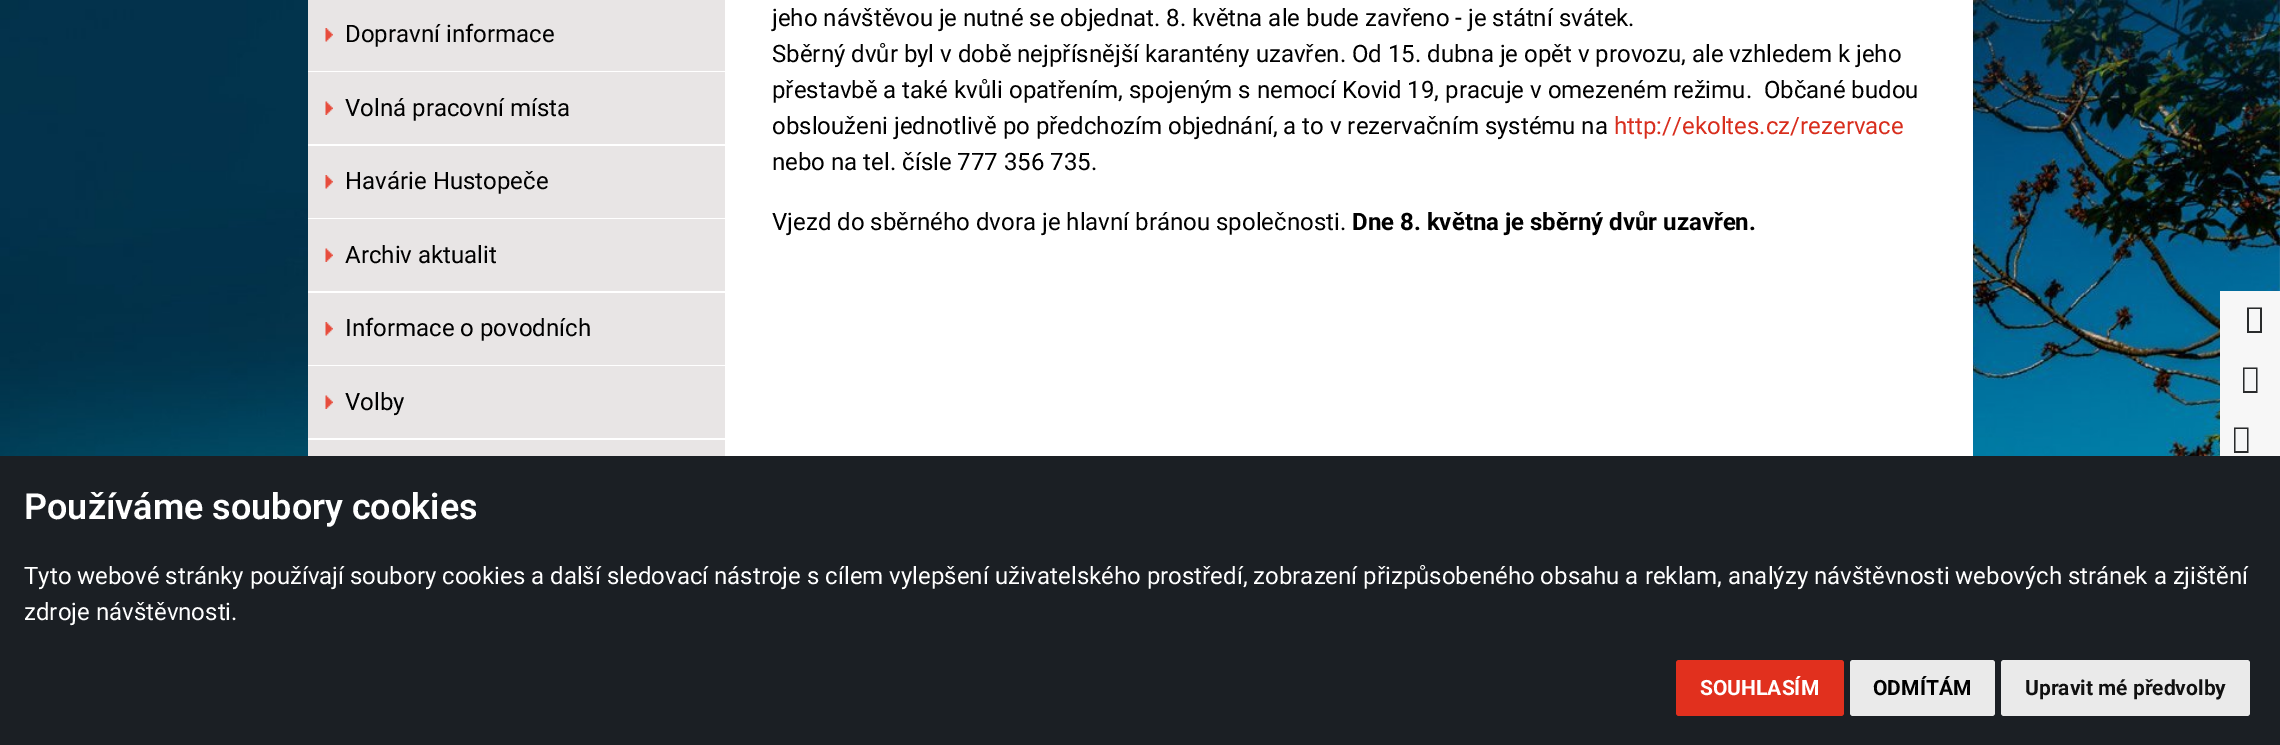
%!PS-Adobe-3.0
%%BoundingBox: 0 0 2280 745
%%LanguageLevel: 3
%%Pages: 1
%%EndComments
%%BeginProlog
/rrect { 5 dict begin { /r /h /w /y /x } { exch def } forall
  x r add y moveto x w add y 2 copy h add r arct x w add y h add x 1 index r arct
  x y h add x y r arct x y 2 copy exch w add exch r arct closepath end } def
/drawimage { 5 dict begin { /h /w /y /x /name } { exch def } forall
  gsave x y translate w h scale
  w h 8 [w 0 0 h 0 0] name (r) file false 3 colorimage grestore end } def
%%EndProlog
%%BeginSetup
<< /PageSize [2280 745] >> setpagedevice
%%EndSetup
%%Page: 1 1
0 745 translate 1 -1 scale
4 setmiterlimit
1 setgray
0 0 2280 745 rectfill
(images/1.raw) 0 0 2280 456 drawimage
725 0 1248 456 rectfill
0.91 0.898 0.898 setrgbcolor
308 0 417 456 rectfill
1 setgray
308 71 417 1 rectfill
(images/2.raw) 325 28 8 14 drawimage
308 144 417 2 rectfill
(images/3.raw) 325 101 8 14 drawimage
308 218 417 1 rectfill
(images/2.raw) 325 175 8 14 drawimage
308 291 417 2 rectfill
(images/3.raw) 325 248 8 14 drawimage
308 365 417 1 rectfill
(images/2.raw) 325 322 8 14 drawimage
308 438 417 2 rectfill
(images/3.raw) 325 395 8 14 drawimage
0.969 setgray
2220 291 60 165 rectfill
0.161 0.169 0.173 setrgbcolor
newpath 2247 333 moveto 2247 307.5 lineto 2262 307.5 lineto 2262 333 lineto closepath 2249 331 moveto 2260 331 lineto 2260 309 lineto 2249 309 lineto closepath fill
newpath 2243 393 moveto 2243 367.5 lineto 2257.5 367.5 lineto 2257.5 393 lineto closepath 2244.5 391 moveto 2256 391 lineto 2256 369 lineto 2244.5 369 lineto closepath fill
newpath 2234 453 moveto 2234 427.5 lineto 2248.5 427.5 lineto 2248.5 453 lineto closepath 2235.5 451 moveto 2247 451 lineto 2247 429 lineto 2235.5 429 lineto closepath fill
0.106 0.122 0.141 setrgbcolor
0 456 2280 289 rectfill
0.882 0.188 0.118 setrgbcolor
1676 660 168 56 3 rrect fill
0.918 setgray
1850 660 145 56 3 rrect fill
2001 660 249 56 3 rrect fill
/Roboto-Regular [24 0 0 -24 0 0] selectfont
0 setgray
345 42 moveto (Dopravní informace) show
345 116 moveto (Volná pracovní místa) show
345 189 moveto (Havárie Hustopeče) show
345 263 moveto (Archiv aktualit) show
345 336 moveto (Informace o povodních) show
345 410 moveto (Volby) show
772 26 moveto (jeho návštěvou je nutné se objednat. 8. května ale bude zavřeno - je státní svátek.) show
772 62 moveto (Sběrný dvůr byl v době nejpřísnější karantény uzavřen. Od 15. dubna je opět v provozu, ale vzhledem k jeho) show
772 98 moveto (přestavbě a také kvůli opatřením, spojeným s nemocí Kovid 19, pracuje v omezeném režimu.  Občané budou) show
772 134 moveto (obslouženi jednotlivě po předchozím objednání, a to v rezervačním systému na) show
0.847 0.18 0.114 setrgbcolor
1614 134 moveto (http://ekoltes.cz/rezervace) show
0 setgray
772 170 moveto (nebo na tel. čísle 777 356 735.) show
772 230 moveto (Vjezd do sběrného dvora je hlavní bránou společnosti.) show
/Roboto-Bold [24 0 0 -24 0 0] selectfont
1352 230 moveto (Dne 8. května je sběrný dvůr uzavřen.) show
/Roboto-SemiBold [36 0 0 -36 0 0] selectfont
1 setgray
24 519 moveto (Používáme soubory cookies) show
/Roboto-Regular [24 0 0 -24 0 0] selectfont
24 584 moveto (Tyto webové stránky používají soubory cookies a další sledovací nástroje s cílem vylepšení uživatelského prostředí, zobrazení přizpůsobeného obsahu a reklam, analýzy návštěvnosti webových stránek a zjištění) show
24 620 moveto (zdroje návštěvnosti.) show
/Roboto-Bold [21 0 0 -21 0 0] selectfont
1700 695 moveto (SOUHLASÍM) show
0 setgray
1873 695 moveto (ODMÍTÁM) show
0.067 setgray
2025 695 moveto (Upravit mé předvolby) show
showpage
%%EOF
